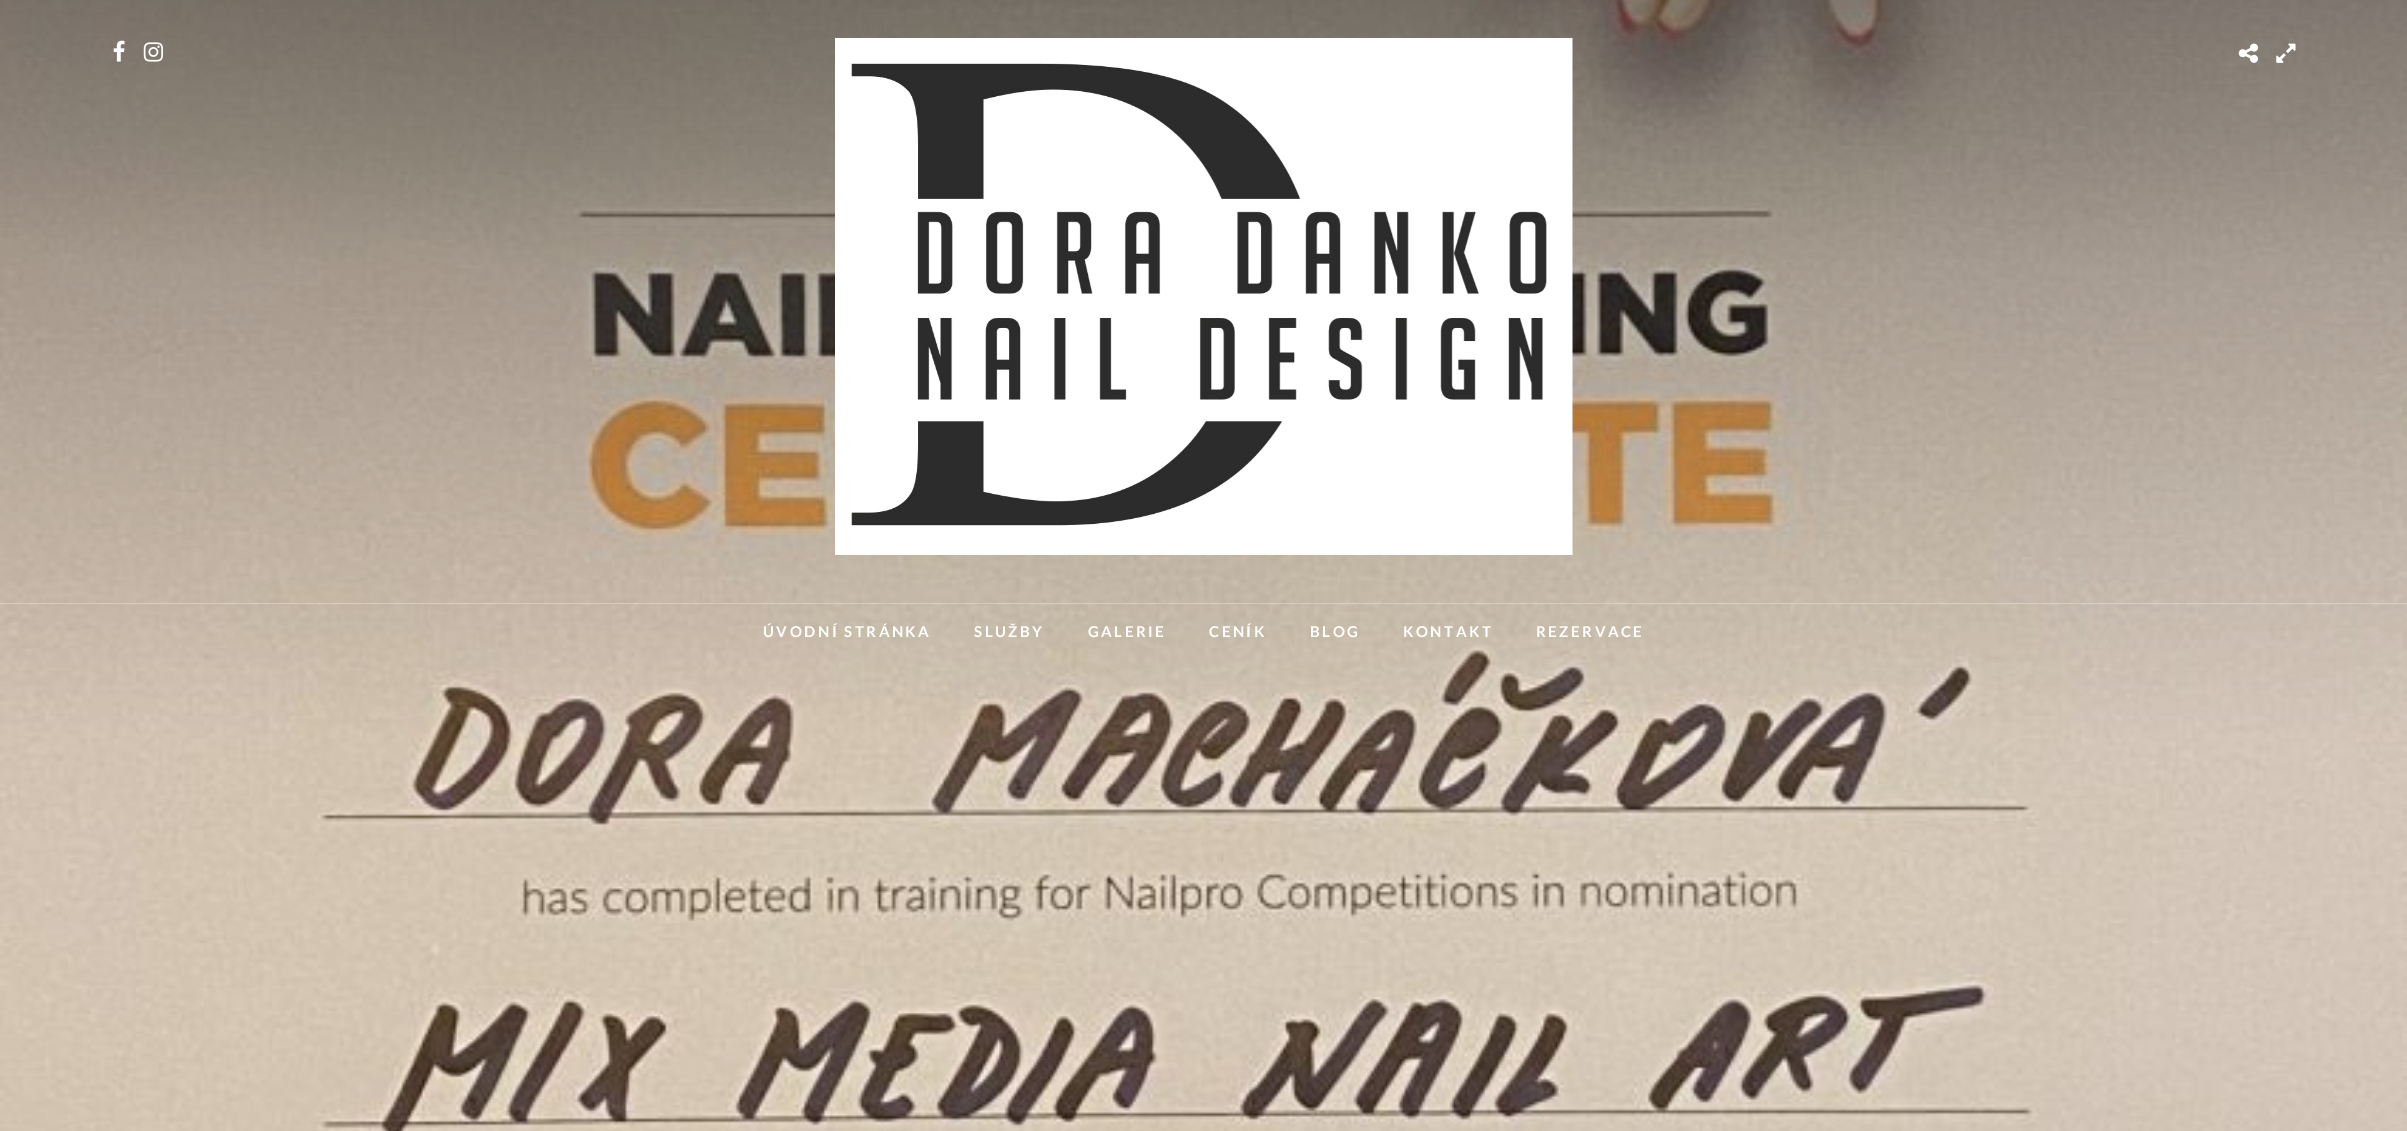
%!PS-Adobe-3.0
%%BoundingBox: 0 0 2407 1131
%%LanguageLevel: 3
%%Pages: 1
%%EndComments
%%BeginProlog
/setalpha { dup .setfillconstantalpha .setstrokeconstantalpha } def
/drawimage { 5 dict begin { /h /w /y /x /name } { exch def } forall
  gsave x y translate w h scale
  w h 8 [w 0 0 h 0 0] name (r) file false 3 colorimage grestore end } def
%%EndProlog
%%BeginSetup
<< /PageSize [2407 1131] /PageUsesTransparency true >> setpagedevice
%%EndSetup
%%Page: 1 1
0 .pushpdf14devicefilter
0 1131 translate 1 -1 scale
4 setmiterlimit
1 setgray
0 0 2407 1131 rectfill
(images/1.raw) 0 0 2407 1131 drawimage
0.3 setalpha
0 603 2407 1 rectfill
1 setalpha
(images/2.raw) 113 40 12 22 drawimage
(images/3.raw) 143 42 21 20 drawimage
(images/4.raw) 835 38 738 517 drawimage
(images/5.raw) 2238 43 20 20 drawimage
(images/6.raw) 2276 43 20 20 drawimage
/Lato-Bold [15 0 0 -15 0 0] selectfont
763 637 moveto 2.5 0 (ÚVODNÍ STRÁNKA) ashow
974 637 moveto 2.5 0 (SLUŽBY) ashow
1088 637 moveto 2.5 0 (GALERIE) ashow
1209 637 moveto 2.5 0 (CENÍK) ashow
1310 637 moveto 2.5 0 (BLOG) ashow
1403 637 moveto 2.5 0 (KONTAKT) ashow
1536 637 moveto 2.5 0 (REZERVACE) ashow
.poppdf14devicefilter showpage
%%EOF
